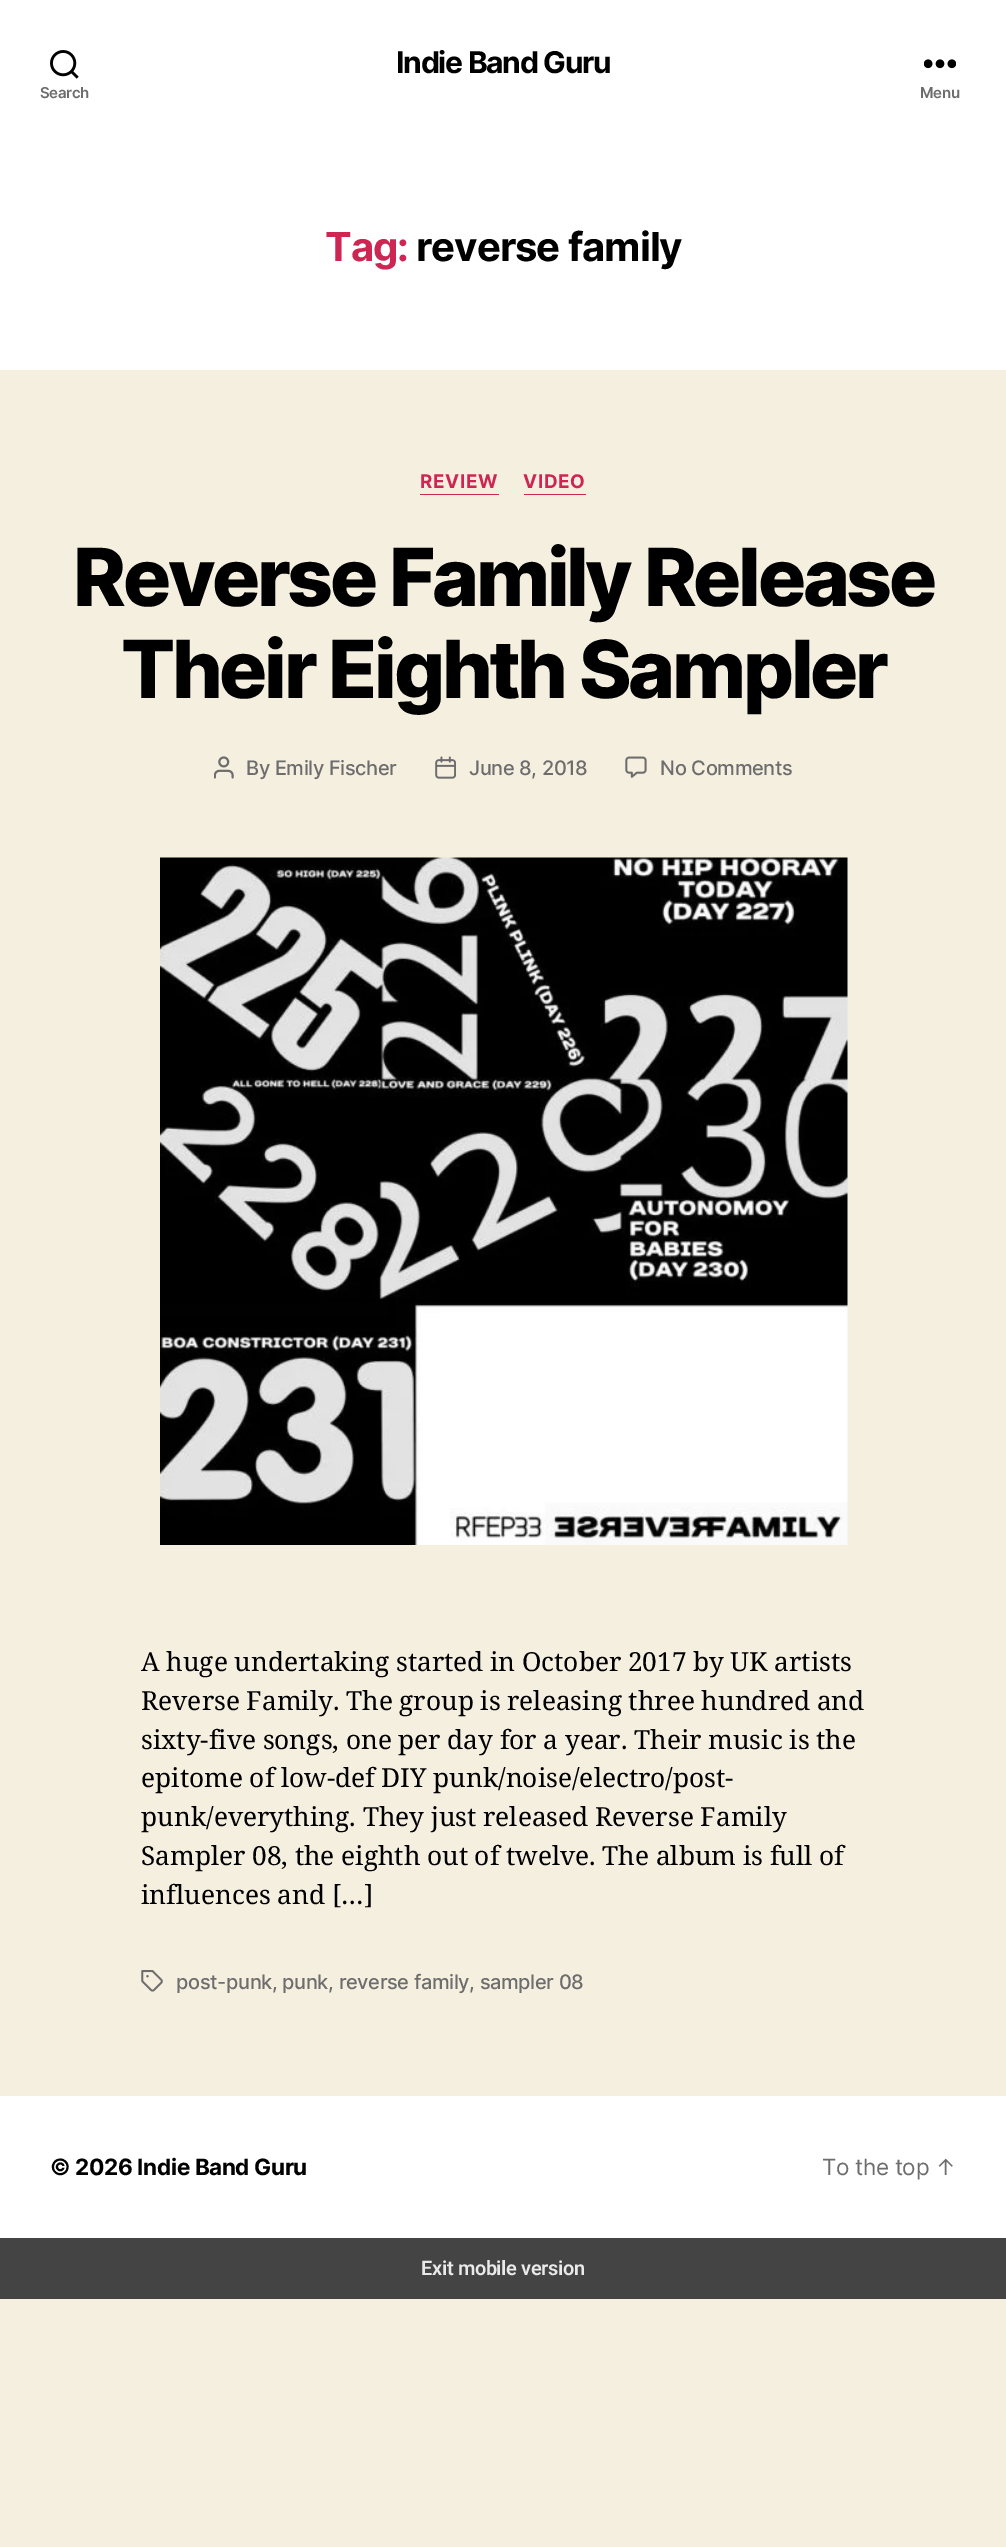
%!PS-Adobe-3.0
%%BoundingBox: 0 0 1006 2547
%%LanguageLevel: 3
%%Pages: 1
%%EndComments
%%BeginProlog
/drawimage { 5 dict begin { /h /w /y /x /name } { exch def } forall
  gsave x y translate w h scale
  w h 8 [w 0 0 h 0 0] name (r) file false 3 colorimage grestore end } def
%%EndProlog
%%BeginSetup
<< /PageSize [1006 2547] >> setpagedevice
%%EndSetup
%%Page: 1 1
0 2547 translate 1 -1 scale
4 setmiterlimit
0.961 0.937 0.878 setrgbcolor
0 0 1006 2547 rectfill
1 setgray
0 0 1006 370 rectfill
(images/1.raw) 50 50 29 29 drawimage
(images/2.raw) 924 59 32 10 drawimage
0.804 0.149 0.325 setrgbcolor
420 494 79 1 rectfill
524 494 62 1 rectfill
(images/3.raw) 214 756 20 23 drawimage
(images/4.raw) 435 756 21 23 drawimage
(images/5.raw) 625 756 22 22 drawimage
(images/6.raw) 160 857 688 688 drawimage
(images/7.raw) 141 1970 22 22 drawimage
1 setgray
0 2096 1006 142 rectfill
0.267 setgray
0 2238 1006 61 rectfill
/Inter-Bold [30 0 0 -30 0 0] selectfont
0 setgray
396 73 moveto -1.25 0 (Indie Band Guru) ashow
/Inter-SemiBold [15 0 0 -15 0 0] selectfont
0.427 setgray
40 98 moveto -0.35 0 (Search) ashow
920 98 moveto -0.35 0 (Menu) ashow
/Inter-Bold [40 0 0 -40 0 0] selectfont
0.804 0.149 0.325 setrgbcolor
325 261 moveto -1 0 (Tag:) ashow
0 setgray
416 261 moveto -1 0 (reverse family) ashow
/Inter-Bold [18.75 0 0 -18.75 0 0] selectfont
0.804 0.149 0.325 setrgbcolor
420 488 moveto 0.75 0 (REVIEW) ashow
523 488 moveto 0.75 0 (VIDEO) ashow
/Inter-ExtraBold [80 0 0 -80 0 0] selectfont
0 setgray
73 606 moveto -3.3 0 (Reverse Family Release) ashow
121 698 moveto -3.3 0 (Their Eighth Sampler) ashow
/Inter-Medium [20 0 0 -20 0 0] selectfont
0.427 setgray
246 775 moveto -0.35 0 (By Emily Fischer) ashow
469 775 moveto -0.35 0 (June 8, 2018) ashow
660 775 moveto -0.35 0 (No Comments) ashow
/NotoSerif-Regular [26.25 0 0 -26.25 0 0] selectfont
0 setgray
141 1671 moveto -0.25 0 32 (A huge undertaking started in October 2017 by UK artists) widthshow
141 1710 moveto -0.25 0 32 (Reverse Family. The group is releasing three hundred and) widthshow
141 1749 moveto -0.25 0 32 (sixty-five songs, one per day for a year. Their music is the) widthshow
141 1787 moveto -0.25 0 32 (epitome of low-def DIY punk/noise/electro/post-) widthshow
141 1826 moveto -0.25 0 32 (punk/everything. They just released Reverse Family) widthshow
141 1865 moveto -0.25 0 32 (Sampler 08, the eighth out of twelve. The album is full of) widthshow
141 1904 moveto -0.25 0 32 (influences and […]) widthshow
/Inter-Medium [20 0 0 -20 0 0] selectfont
0.427 setgray
176 1989 moveto -0.35 0 (post-punk, punk, reverse family, sampler 08) ashow
/Inter-Bold [22.5 0 0 -22.5 0 0] selectfont
0 setgray
50 2175 moveto -0.35 0 (© 2026 Indie Band Guru) ashow
/Inter-Regular [22.5 0 0 -22.5 0 0] selectfont
0.427 setgray
822 2175 moveto -0.35 0 (To the top ↑) ashow
/Roboto-SemiBold [20 0 0 -20 0 0] selectfont
0.918 setgray
421 2275 moveto -0.35 0 (Exit mobile version) ashow
showpage
%%EOF
